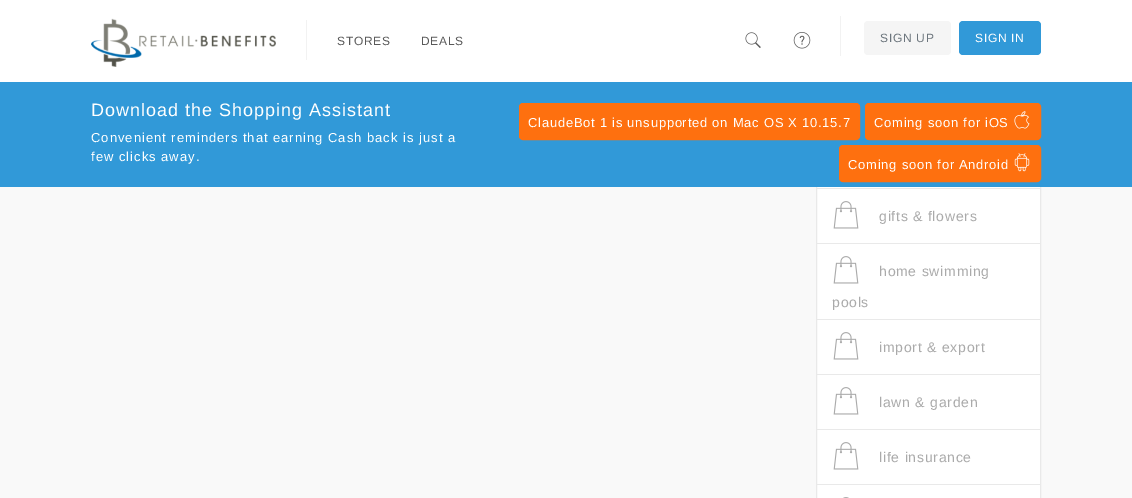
%!PS-Adobe-3.0
%%BoundingBox: 0 0 1132 498
%%LanguageLevel: 3
%%Pages: 1
%%EndComments
%%BeginProlog
/rrect { 5 dict begin { /r /h /w /y /x } { exch def } forall
  x r add y moveto x w add y 2 copy h add r arct x w add y h add x 1 index r arct
  x y h add x y r arct x y 2 copy exch w add exch r arct closepath end } def
/drawimage { 5 dict begin { /h /w /y /x /name } { exch def } forall
  gsave x y translate w h scale
  w h 8 [w 0 0 h 0 0] name (r) file false 3 colorimage grestore end } def
%%EndProlog
%%BeginSetup
<< /PageSize [1132 498] >> setpagedevice
%%EndSetup
%%Page: 1 1
0 498 translate 1 -1 scale
4 setmiterlimit
0.976 setgray
0 0 1132 498 rectfill
1 setgray
817 187 223 311 rectfill
0.914 setgray
816.5 -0.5 224 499 rectstroke
1 setgray
0 0 1132 82 rectfill
(images/1.raw) 91 18 185 49 drawimage
0.949 setgray
306 20 1 40 rectfill
(images/2.raw) 745 32 16 16 drawimage
(images/3.raw) 793 32 18 17 drawimage
840 16 1 40 rectfill
0.961 setgray
864 21 87 34 4 rrect fill
0.192 0.6 0.847 setrgbcolor
959 21 82 34 4 rrect fill
0 82 1132 105 rectfill
0.996 0.439 0.059 setrgbcolor
519.5 103.5 340 36 3.5 rrect gsave fill grestore
stroke
865.5 103.5 175 36 3.5 rrect gsave fill grestore
stroke
(images/4.raw) 1014 111 16 18 drawimage
839.5 145.5 201 36 3.5 rrect gsave fill grestore
stroke
(images/5.raw) 1014 153 16 19 drawimage
0.914 setgray
817 188 223 1 rectfill
817 243 223 1 rectfill
(images/6.raw) 833 201 26 28 drawimage
817 319 223 1 rectfill
(images/6.raw) 833 256 26 28 drawimage
817 374 223 1 rectfill
(images/6.raw) 833 332 26 28 drawimage
817 429 223 1 rectfill
(images/6.raw) 833 387 26 28 drawimage
817 484 223 1 rectfill
(images/6.raw) 833 442 26 28 drawimage
(images/7.raw) 843 497 6 1 drawimage
/LiberationSans-Regular [12 0 0 -12 0 0] selectfont
0.349 setgray
337 45 moveto 0.75 0 (STORES) ashow
421 45 moveto 0.75 0 (DEALS) ashow
0.424 0.459 0.49 setrgbcolor
880 42 moveto 0.75 0 (SIGN UP) ashow
1 setgray
975 42 moveto 0.75 0 (SIGN IN) ashow
/LiberationSans-Regular [18 0 0 -18 0 0] selectfont
91 116 moveto 1 0 (Download the Shopping Assistant) ashow
/LiberationSans-Regular [13 0 0 -13 0 0] selectfont
91 142 moveto 1 0 (Convenient reminders that earning Cash back is just a) ashow
91 161 moveto 1 0 (few clicks away.) ashow
528 127 moveto 0.75 0 (ClaudeBot 1 is unsupported on Mac OS X 10.15.7) ashow
874 127 moveto 0.75 0 (Coming soon for iOS) ashow
848 169 moveto 0.75 0 (Coming soon for Android) ashow
/LiberationSans-Regular [14 0 0 -14 0 0] selectfont
0.667 setgray
879 221 moveto 0.75 0 (gifts & flowers) ashow
879 276 moveto 0.75 0 (home swimming) ashow
832 307 moveto 0.75 0 (pools) ashow
879 352 moveto 0.75 0 (import & export) ashow
879 407 moveto 0.75 0 (lawn & garden) ashow
879 462 moveto 0.75 0 (life insurance) ashow
showpage
%%EOF
